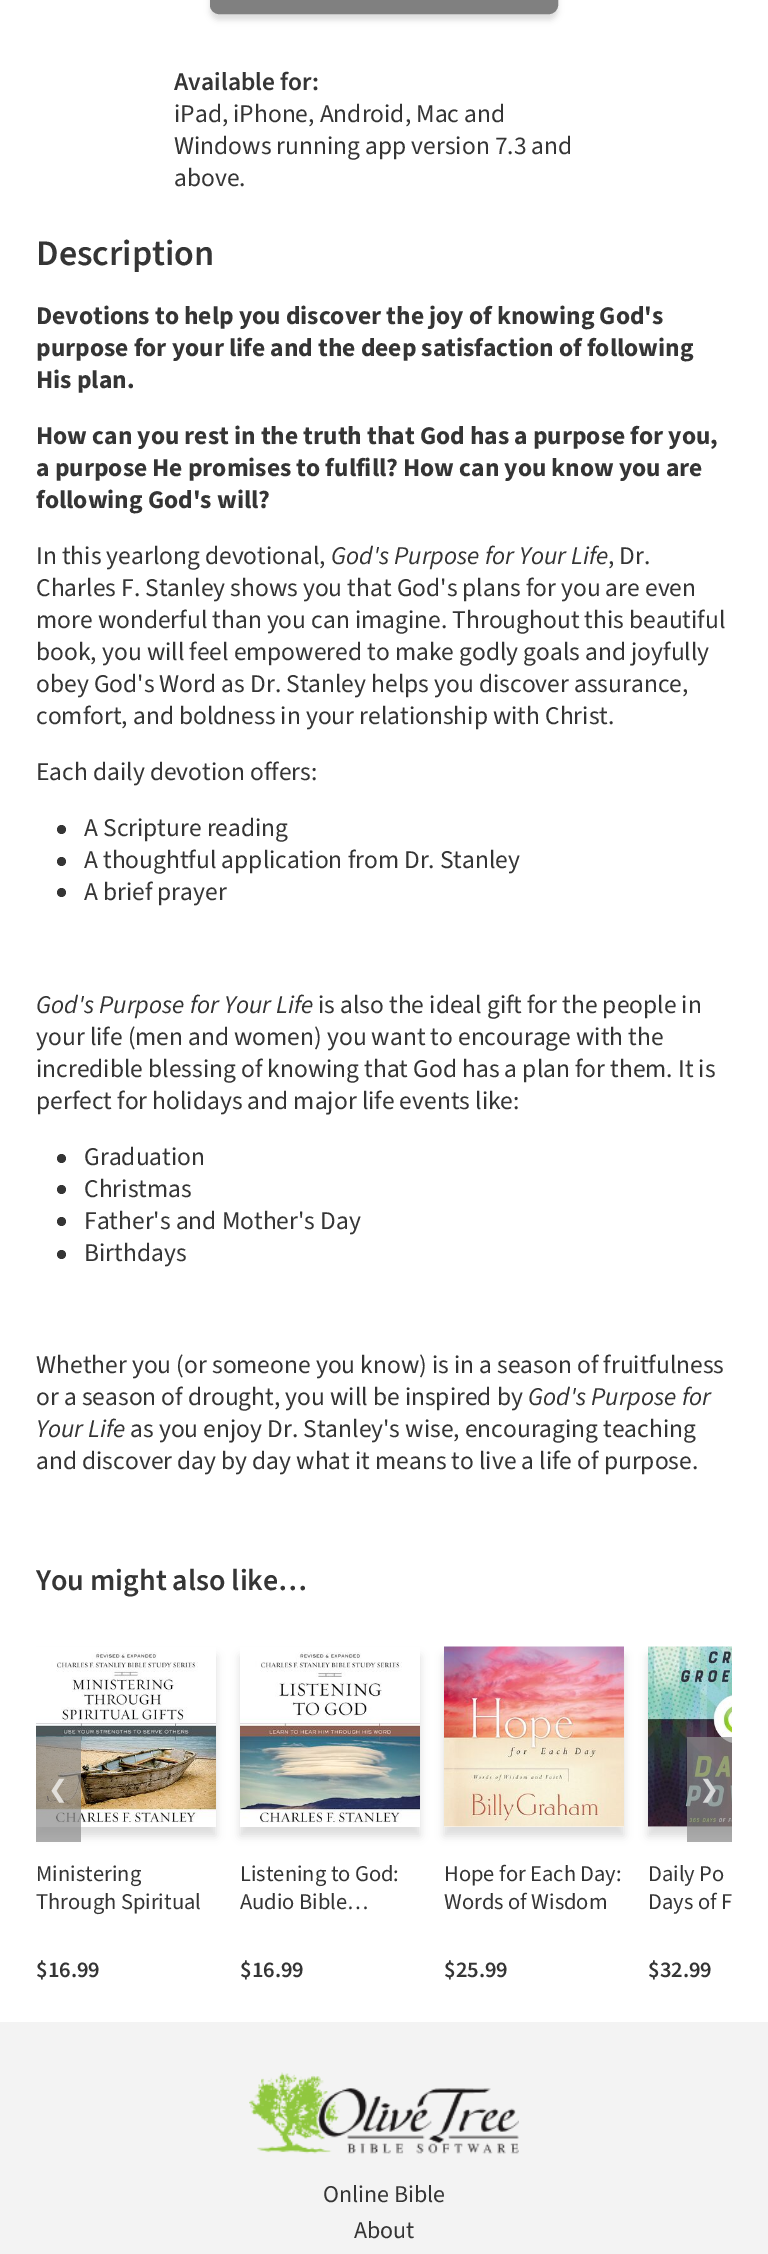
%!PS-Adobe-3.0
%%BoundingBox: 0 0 768 2254
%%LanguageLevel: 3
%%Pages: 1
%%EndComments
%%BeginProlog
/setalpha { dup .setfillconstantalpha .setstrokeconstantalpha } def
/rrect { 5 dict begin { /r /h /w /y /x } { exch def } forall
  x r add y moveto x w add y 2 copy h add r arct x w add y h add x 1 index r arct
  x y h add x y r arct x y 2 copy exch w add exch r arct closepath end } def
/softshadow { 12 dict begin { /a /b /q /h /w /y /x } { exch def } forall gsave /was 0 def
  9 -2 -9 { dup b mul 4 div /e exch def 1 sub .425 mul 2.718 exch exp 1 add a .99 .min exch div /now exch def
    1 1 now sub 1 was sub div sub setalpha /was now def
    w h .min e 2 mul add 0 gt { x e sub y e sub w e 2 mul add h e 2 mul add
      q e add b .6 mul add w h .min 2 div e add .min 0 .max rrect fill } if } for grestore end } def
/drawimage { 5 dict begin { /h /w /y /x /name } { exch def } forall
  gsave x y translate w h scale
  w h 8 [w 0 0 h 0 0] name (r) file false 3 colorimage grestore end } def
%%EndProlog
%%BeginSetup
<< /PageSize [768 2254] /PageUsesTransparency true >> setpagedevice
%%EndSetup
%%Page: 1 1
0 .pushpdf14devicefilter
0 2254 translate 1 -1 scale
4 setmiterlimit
1 setgray
0 0 768 2254 rectfill
0 setgray
210 -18 348 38 9 3 0.13 softshadow
0.502 setgray
211 -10 346 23 8 rrect gsave fill grestore
2 setlinewidth
stroke
0.208 setgray
newpath 61.5 829.5 4.5 0 360 arc closepath fill
newpath 61.5 861.5 4.5 0 360 arc closepath fill
newpath 61.5 892.5 4.5 0 360 arc closepath fill
newpath 61.5 1158.5 4.5 0 360 arc closepath fill
newpath 61.5 1189.5 4.5 0 360 arc closepath fill
newpath 61.5 1221.5 4.5 0 360 arc closepath fill
newpath 61.5 1254.5 4.5 0 360 arc closepath fill
gsave
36 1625 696 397 rectclip
newpath 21 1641 moveto 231 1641 lineto 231 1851 lineto 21 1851 lineto closepath 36 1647 moveto 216 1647 lineto 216 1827 lineto 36 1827 lineto closepath eoclip newpath
0 setgray
36 1656 180 180 0 4.5 0.13 softshadow
grestore
(images/1.raw) 36 1652 180 171 drawimage
0.7 setalpha
0.541 setgray
36 1737 45 105 rectfill
gsave
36 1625 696 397 rectclip
1 setalpha
0 setgray
648 1656 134 180 0 4.5 0.13 softshadow
grestore
1 setalpha
(images/4.raw) 648 1646 84 181 drawimage
0.7 setalpha
687 1737 45 105 rectfill
gsave
newpath 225 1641 moveto 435 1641 lineto 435 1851 lineto 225 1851 lineto closepath 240 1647 moveto 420 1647 lineto 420 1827 lineto 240 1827 lineto closepath eoclip newpath
1 setalpha
0 setgray
240 1656 180 180 0 4.5 0.13 softshadow
grestore
1 setalpha
(images/2.raw) 240 1652 180 171 drawimage
0 setgray
444 1656 180 180 0 4.5 0.13 softshadow
(images/3.raw) 444 1646 180 181 drawimage
0.953 setgray
0 2022 768 232 rectfill
(images/5.raw) 249 2072 270 82 drawimage
/SourceSans3-SemiBold [25.5 0 0 -25.5 0 0] selectfont
0.208 setgray
174 90 moveto (Available for:) show
/SourceSans3-Regular [25.5 0 0 -25.5 0 0] selectfont
174 122 moveto (iPad, iPhone, Android, Mac and) show
174 154 moveto (Windows running app version 7.3 and) show
174 186 moveto (above.) show
/SourceSans3-SemiBold [36 0 0 -36 0 0] selectfont
36 265 moveto (Description) show
/SourceSans3-Bold [25.5 0 0 -25.5 0 0] selectfont
36 324 moveto (Devotions to help you discover the joy of knowing God's) show
36 356 moveto (purpose for your life and the deep satisfaction of following) show
36 388 moveto (His plan.) show
36 444 moveto (How can you rest in the truth that God has a purpose for you,) show
36 476 moveto (a purpose He promises to fulfill? How can you know you are) show
36 508 moveto (following God's will?) show
/SourceSans3-Regular [25.5 0 0 -25.5 0 0] selectfont
36 564 moveto (In this yearlong devotional,) show
/SourceSans3-Italic [25.5 0 0 -25.5 0 0] selectfont
331 564 moveto (God's Purpose for Your Life) show
/SourceSans3-Regular [25.5 0 0 -25.5 0 0] selectfont
608 564 moveto (, Dr.) show
36 596 moveto (Charles F. Stanley shows you that God's plans for you are even) show
36 628 moveto (more wonderful than you can imagine. Throughout this beautiful) show
36 660 moveto (book, you will feel empowered to make godly goals and joyfully) show
36 692 moveto (obey God's Word as Dr. Stanley helps you discover assurance,) show
36 724 moveto (comfort, and boldness in your relationship with Christ.) show
36 780 moveto (Each daily devotion offers:) show
84 836 moveto (A Scripture reading) show
84 868 moveto (A thoughtful application from Dr. Stanley) show
84 900 moveto (A brief prayer) show
/SourceSans3-Italic [25.5 0 0 -25.5 0 0] selectfont
36 1013 moveto (God's Purpose for Your Life) show
/SourceSans3-Regular [25.5 0 0 -25.5 0 0] selectfont
318 1013 moveto (is also the ideal gift for the people in) show
36 1045 moveto (your life \(men and women\) you want to encourage with the) show
36 1077 moveto (incredible blessing of knowing that God has a plan for them. It is) show
36 1109 moveto (perfect for holidays and major life events like:) show
84 1165 moveto (Graduation) show
84 1197 moveto (Christmas) show
84 1229 moveto (Father's and Mother's Day) show
84 1261 moveto (Birthdays) show
36 1373 moveto (Whether you \(or someone you know\) is in a season of fruitfulness) show
36 1405 moveto (or a season of drought, you will be inspired by) show
/SourceSans3-Italic [25.5 0 0 -25.5 0 0] selectfont
528 1405 moveto (God's Purpose for) show
36 1437 moveto (Your Life) show
/SourceSans3-Regular [25.5 0 0 -25.5 0 0] selectfont
130 1437 moveto (as you enjoy Dr. Stanley's wise, encouraging teaching) show
36 1469 moveto (and discover day by day what it means to live a life of purpose.) show
/SourceSans3-SemiBold [30 0 0 -30 0 0] selectfont
36 1590 moveto (You might also like…) show
/DejaVuSans-Regular [24 0 0 -24 0 0] selectfont
0.886 0.875 0.855 setrgbcolor
48 1797 moveto (❮) show
0.847 0.851 0.855 setrgbcolor
699 1797 moveto (❯) show
/SourceSans3-Regular [22.5 0 0 -22.5 0 0] selectfont
0.208 setgray
36 1881 moveto (Ministering) show
36 1909 moveto (Through Spiritual) show
/SourceSans3-SemiBold [22.5 0 0 -22.5 0 0] selectfont
36 1977 moveto ($16.99) show
/SourceSans3-Regular [22.5 0 0 -22.5 0 0] selectfont
240 1881 moveto (Listening to God:) show
240 1909 moveto (Audio Bible…) show
/SourceSans3-SemiBold [22.5 0 0 -22.5 0 0] selectfont
240 1977 moveto ($16.99) show
/SourceSans3-Regular [22.5 0 0 -22.5 0 0] selectfont
444 1881 moveto (Hope for Each Day:) show
444 1909 moveto (Words of Wisdom) show
/SourceSans3-SemiBold [22.5 0 0 -22.5 0 0] selectfont
444 1977 moveto ($25.99) show
/SourceSans3-Regular [22.5 0 0 -22.5 0 0] selectfont
648 1881 moveto (Daily Po) show
648 1909 moveto (Days of F) show
/SourceSans3-SemiBold [22.5 0 0 -22.5 0 0] selectfont
648 1977 moveto ($32.99) show
/SourceSans3-Regular [24 0 0 -24 0 0] selectfont
323 2202 moveto (Online Bible) show
354 2238 moveto (About) show
.poppdf14devicefilter showpage
%%EOF
